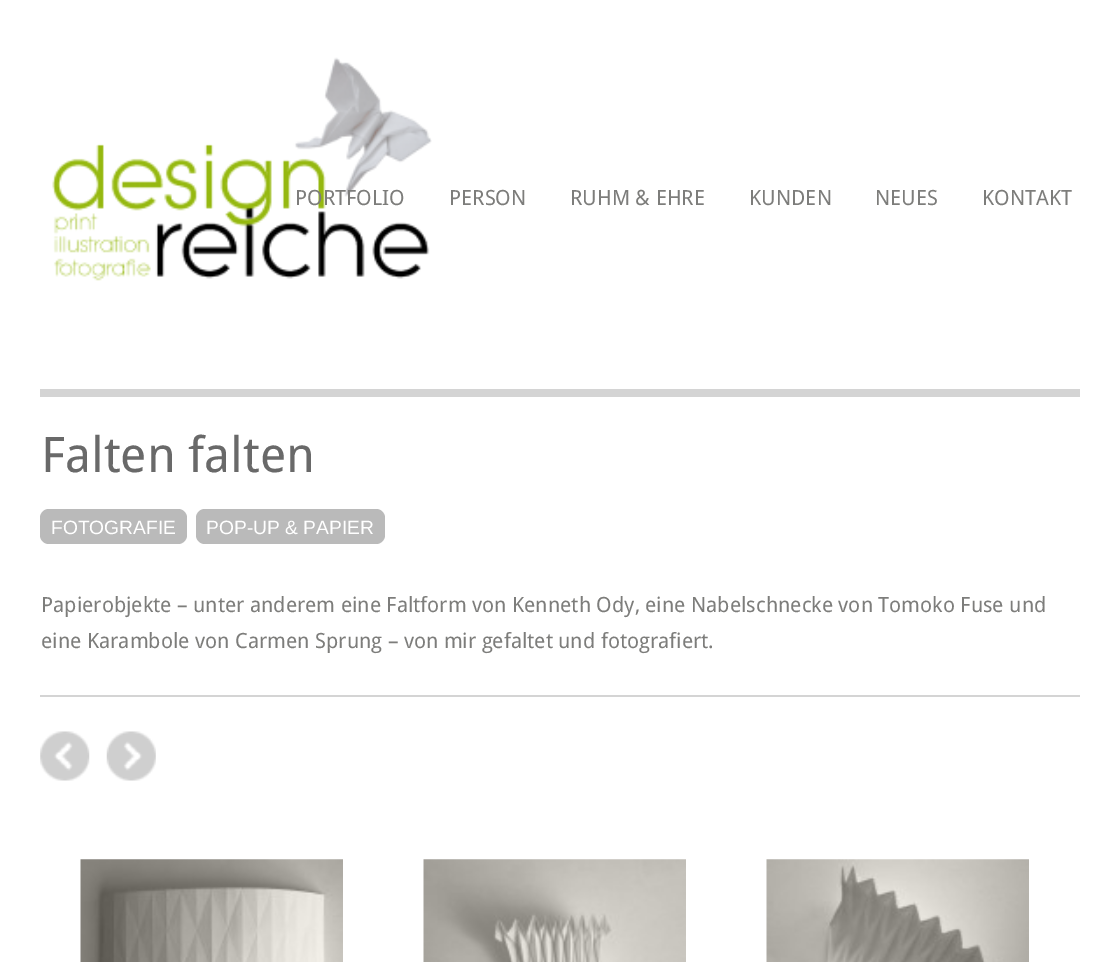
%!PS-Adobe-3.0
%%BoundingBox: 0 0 1115 962
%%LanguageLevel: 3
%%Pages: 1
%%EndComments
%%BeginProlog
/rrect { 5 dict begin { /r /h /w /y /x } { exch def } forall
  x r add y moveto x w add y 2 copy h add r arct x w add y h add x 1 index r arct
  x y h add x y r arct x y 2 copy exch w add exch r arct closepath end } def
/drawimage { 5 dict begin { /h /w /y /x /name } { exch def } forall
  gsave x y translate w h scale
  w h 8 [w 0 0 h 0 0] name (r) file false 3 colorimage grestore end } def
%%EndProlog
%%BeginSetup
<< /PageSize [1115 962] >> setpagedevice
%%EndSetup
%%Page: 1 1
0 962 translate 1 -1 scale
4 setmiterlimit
1 setgray
0 0 1115 962 rectfill
(images/1.raw) 52 57 380 224 drawimage
0.831 setgray
40 389 1040 8 rectfill
0.729 setgray
40 509 147 35 9 rrect fill
196 509 189 35 9 rrect fill
0.831 setgray
40 695 1040 2 rectfill
(images/2.raw) 40 731 50 50 drawimage
(images/3.raw) 106 731 50 50 drawimage
(images/4.raw) 80 859 263 103 drawimage
(images/5.raw) 423 859 263 103 drawimage
(images/6.raw) 766 859 263 103 drawimage
/DroidSans-Regular [21 0 0 -21 0 0] selectfont
0.49 0.49 0.482 setrgbcolor
295 205 moveto (PORTFOLIO) show
449 205 moveto (PERSON) show
570 205 moveto (RUHM & EHRE) show
749 205 moveto (KUNDEN) show
875 205 moveto (NEUES) show
982 205 moveto (KONTAKT) show
/DroidSans-Regular [49 0 0 -49 0 0] selectfont
0.412 setgray
41 472 moveto (Falten falten) show
/LiberationSans-Regular [19.25 0 0 -19.25 0 0] selectfont
1 setgray
51 534 moveto (FOTOGRAFIE) show
206 534 moveto (POP-UP & PAPIER) show
/DroidSans-Regular [21 0 0 -21 0 0] selectfont
0.49 0.49 0.482 setrgbcolor
41 612 moveto (Papierobjekte – unter anderem eine Faltform von Kenneth Ody, eine Nabelschnecke von Tomoko Fuse und) show
41 648 moveto (eine Karambole von Carmen Sprung – von mir gefaltet und fotografiert.) show
showpage
%%EOF
